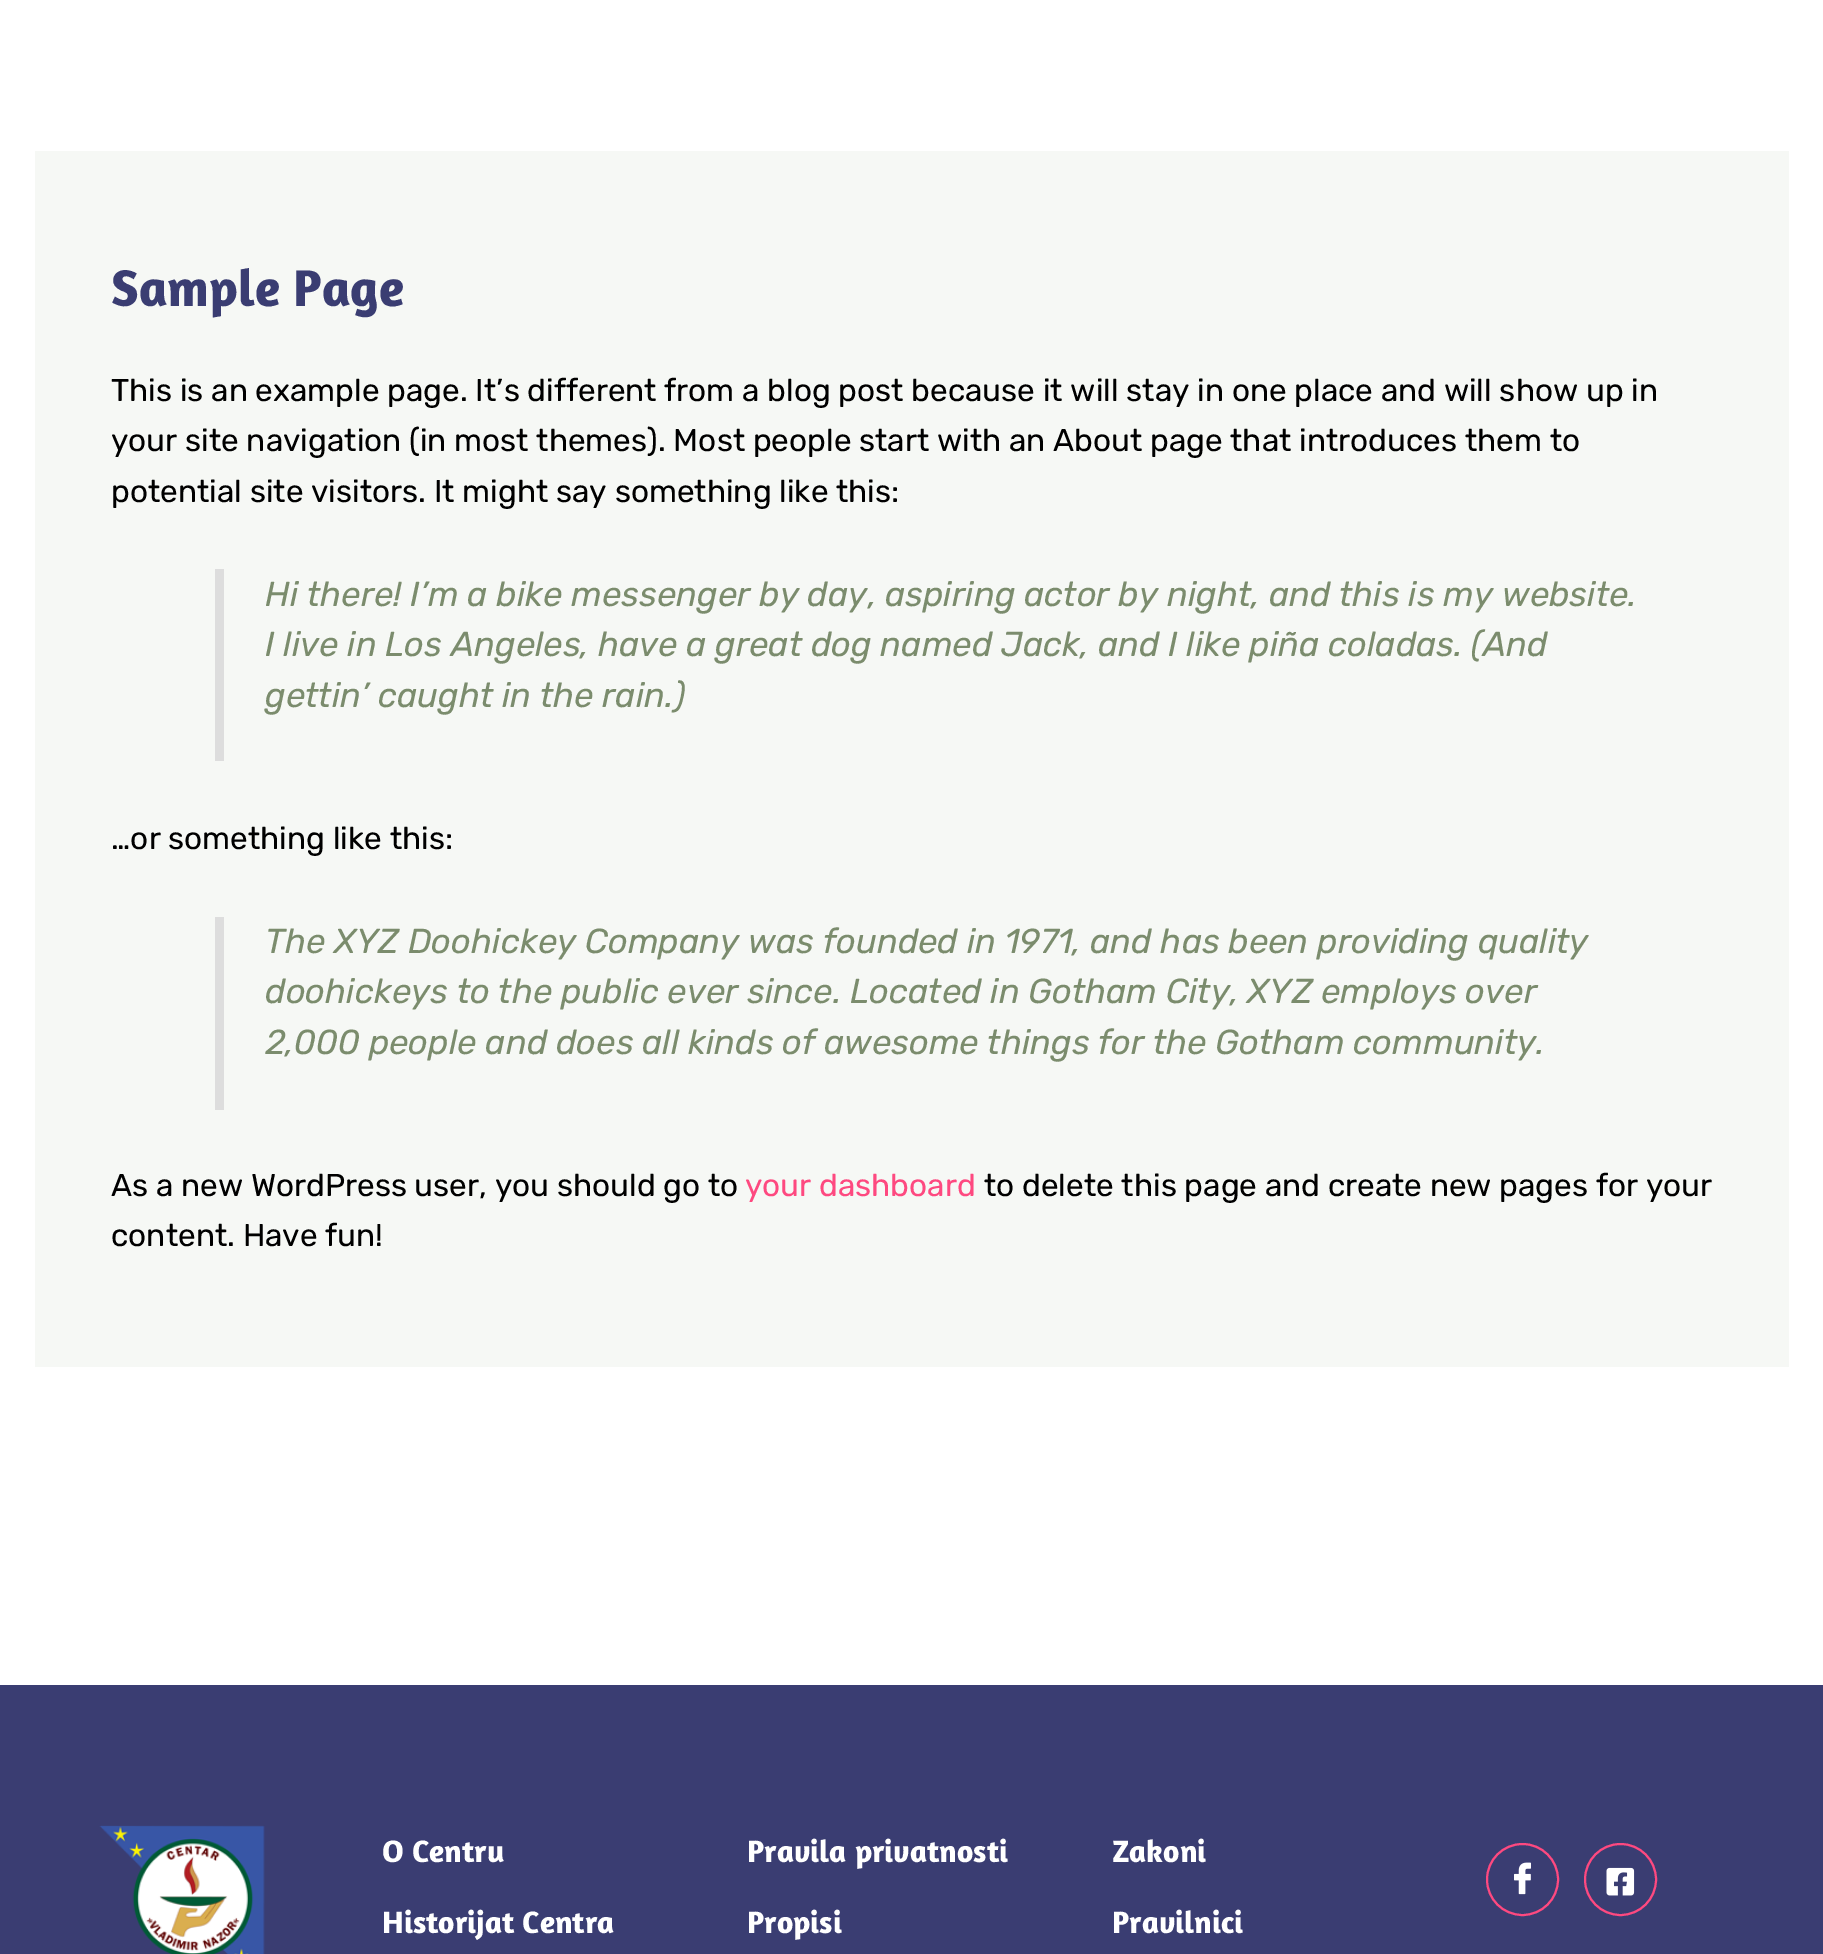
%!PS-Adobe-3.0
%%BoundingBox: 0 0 1823 1954
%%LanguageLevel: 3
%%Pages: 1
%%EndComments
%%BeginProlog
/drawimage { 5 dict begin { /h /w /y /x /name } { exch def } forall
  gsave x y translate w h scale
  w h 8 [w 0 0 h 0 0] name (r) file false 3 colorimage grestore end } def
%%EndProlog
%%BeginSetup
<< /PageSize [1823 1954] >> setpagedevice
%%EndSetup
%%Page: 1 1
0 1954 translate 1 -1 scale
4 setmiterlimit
1 setgray
0 0 1823 1954 rectfill
0.965 0.973 0.961 setrgbcolor
35 151 1754 1216 rectfill
0.867 setgray
215 569 9 192 rectfill
215 917 9 193 rectfill
0.227 0.239 0.447 setrgbcolor
0 1685 1823 269 rectfill
(images/1.raw) 99 1825 166 129 drawimage
0.996 0.286 0.502 setrgbcolor
2 setlinewidth
newpath 1522.5 1879.5 35.5 0 360 arc closepath stroke
(images/2.raw) 1514 1862 17 33 drawimage
newpath 1620.5 1879.5 35.5 0 360 arc closepath stroke
(images/3.raw) 1606 1867 29 29 drawimage
/Amaranth-Bold [52.5 0 0 -52.5 0 0] selectfont
0.227 0.239 0.447 setrgbcolor
111 306 moveto (Sample Page) show
/Rubik-Regular [31.5 0 0 -31.5 0 0] selectfont
0 setgray
111 401 moveto (This is an example page. It’s different from a blog post because it will stay in one place and will show up in) show
111 451 moveto (your site navigation \(in most themes\). Most people start with an About page that introduces them to) show
111 502 moveto (potential site visitors. It might say something like this:) show
/Rubik-Italic [34.65 0 0 -34.65 0 0] selectfont
0.482 0.549 0.427 setrgbcolor
265 606 moveto (Hi there! I’m a bike messenger by day, aspiring actor by night, and this is my website.) show
265 656 moveto (I live in Los Angeles, have a great dog named Jack, and I like piña coladas. \(And) show
265 707 moveto (gettin’ caught in the rain.\)) show
/Rubik-Regular [31.5 0 0 -31.5 0 0] selectfont
0 setgray
111 849 moveto (…or something like this:) show
/Rubik-Italic [34.65 0 0 -34.65 0 0] selectfont
0.482 0.549 0.427 setrgbcolor
265 953 moveto (The XYZ Doohickey Company was founded in 1971, and has been providing quality) show
265 1003 moveto (doohickeys to the public ever since. Located in Gotham City, XYZ employs over) show
265 1054 moveto (2,000 people and does all kinds of awesome things for the Gotham community.) show
/Rubik-Regular [31.5 0 0 -31.5 0 0] selectfont
0 setgray
111 1196 moveto (As a new WordPress user, you should go to) show
0.996 0.286 0.502 setrgbcolor
745 1196 moveto (your dashboard) show
0 setgray
984 1196 moveto (to delete this page and create new pages for your) show
111 1246 moveto (content. Have fun!) show
/Amaranth-Bold [31.5 0 0 -31.5 0 0] selectfont
1 setgray
382 1862 moveto (O Centru) show
382 1933 moveto (Historijat Centra) show
747 1862 moveto (Pravila privatnosti) show
747 1933 moveto (Propisi) show
1112 1862 moveto (Zakoni) show
1112 1933 moveto (Pravilnici) show
showpage
%%EOF
